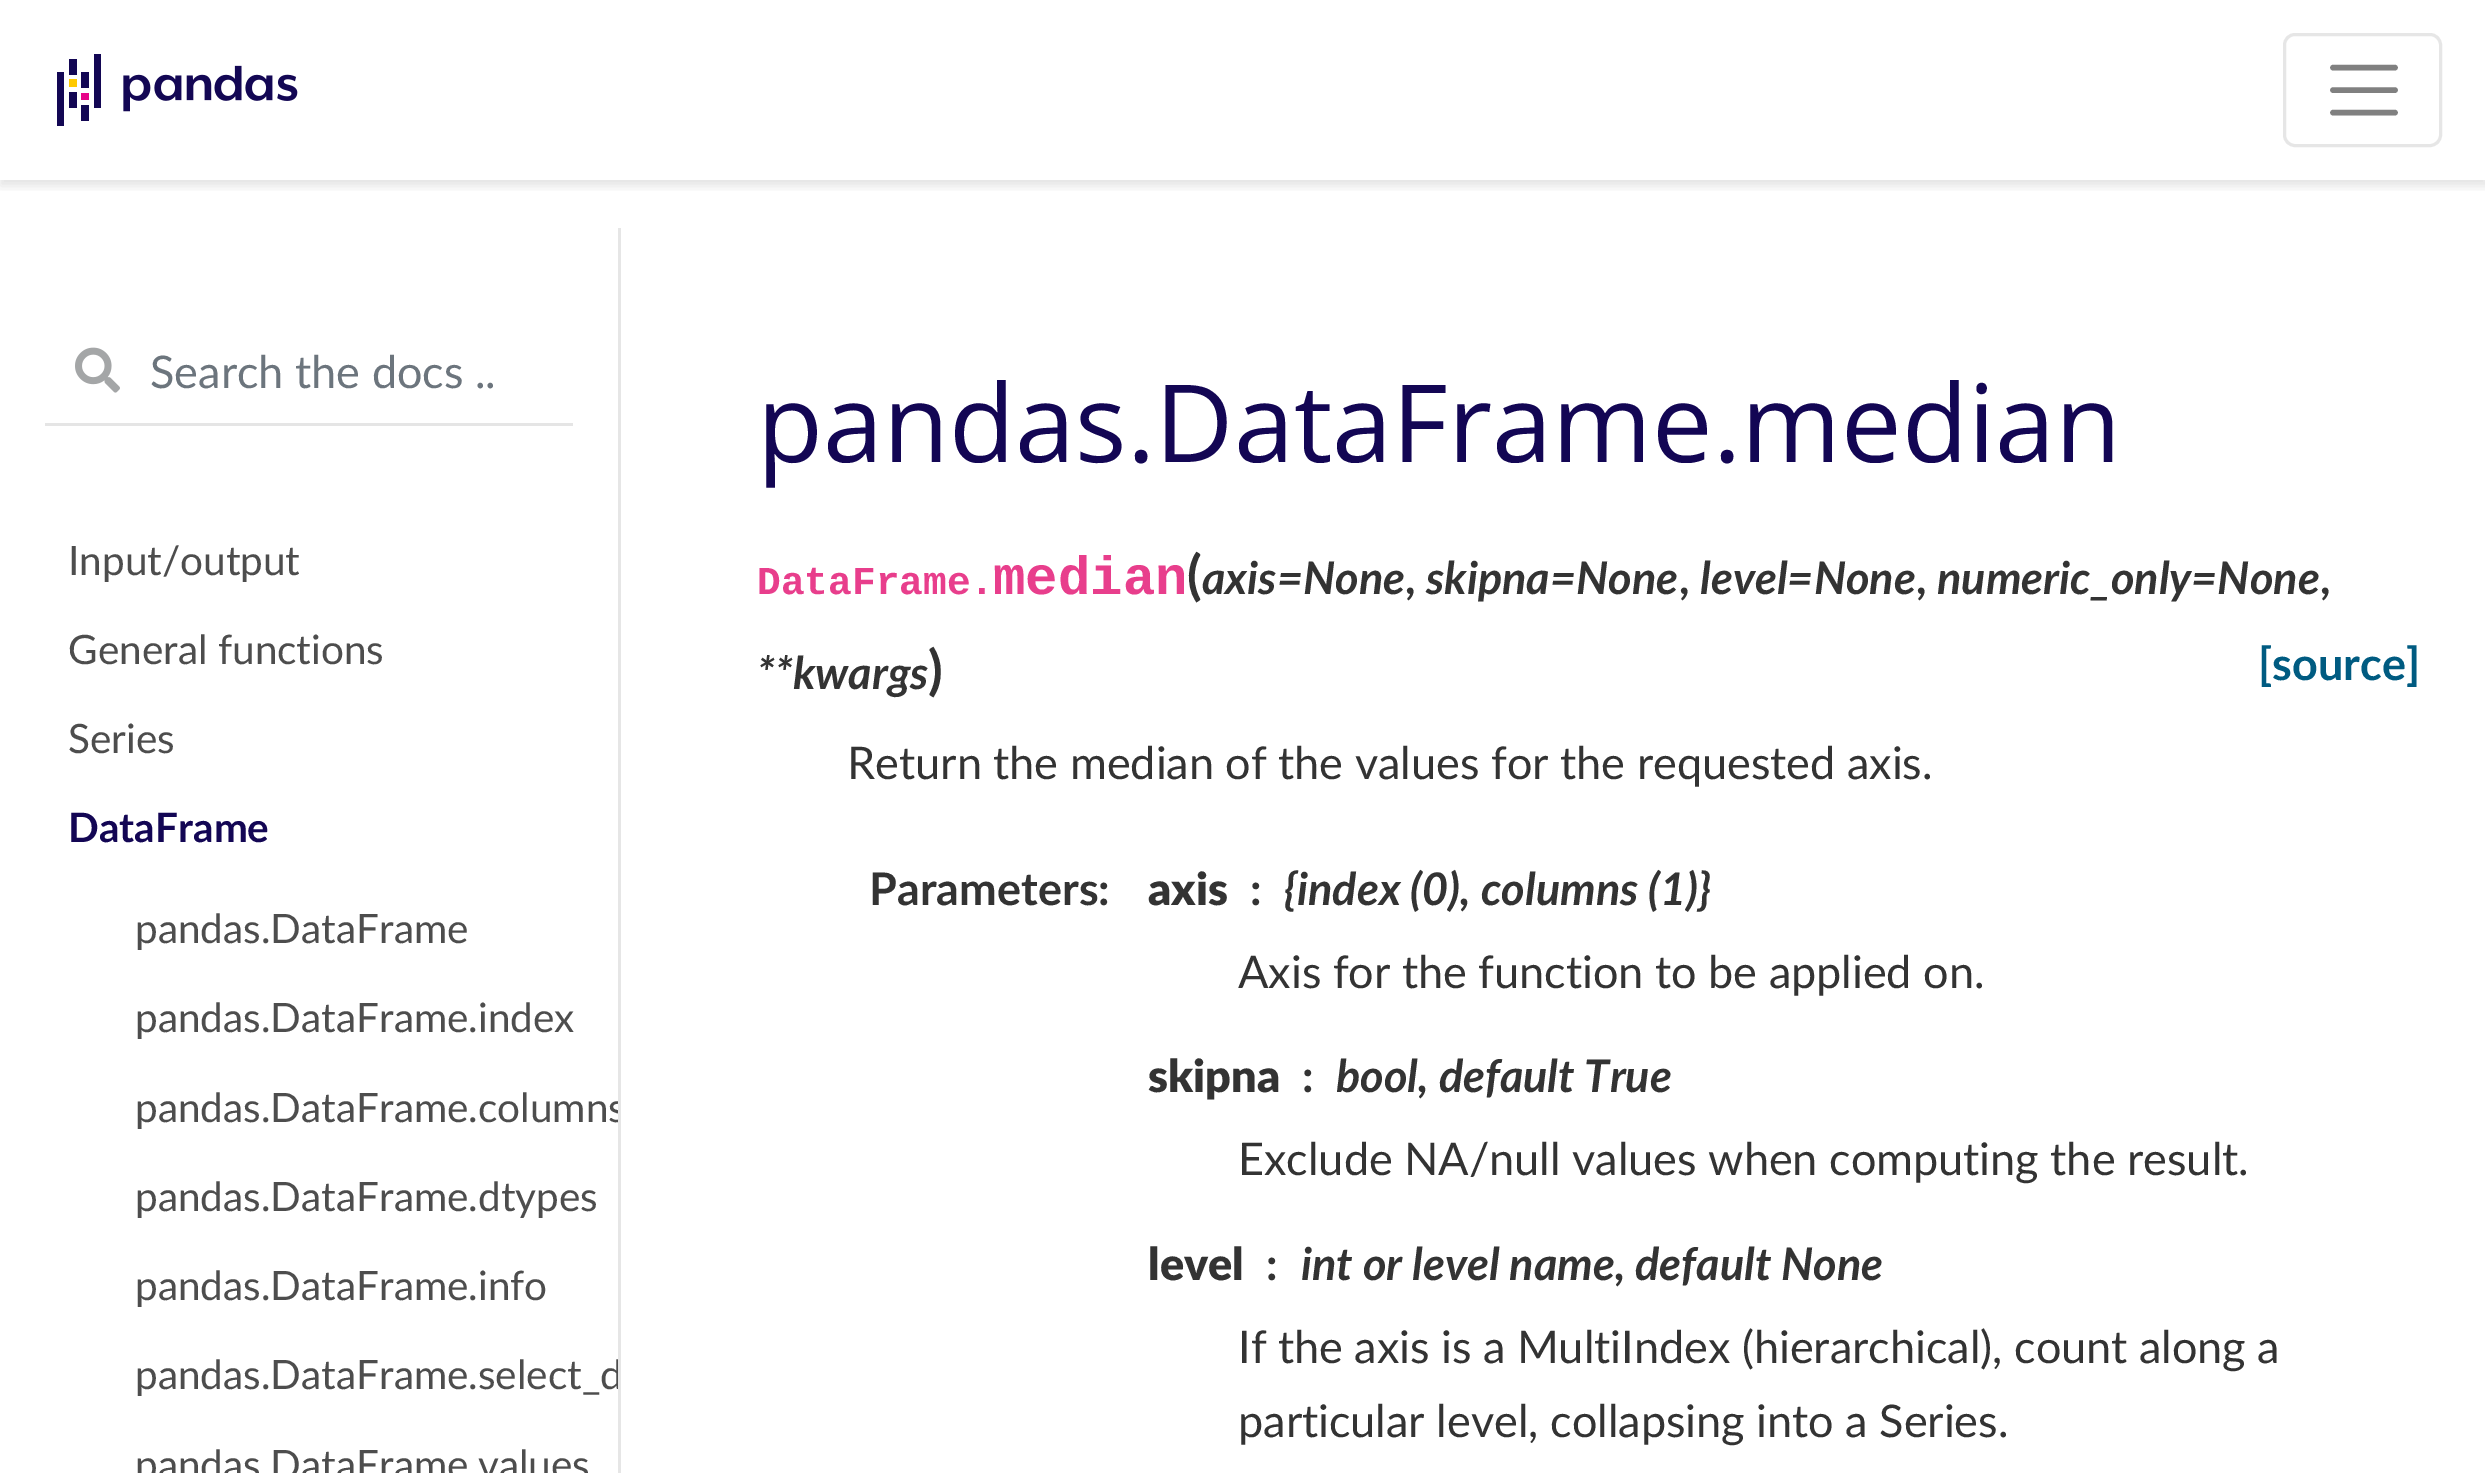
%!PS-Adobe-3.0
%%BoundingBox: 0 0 2485 1473
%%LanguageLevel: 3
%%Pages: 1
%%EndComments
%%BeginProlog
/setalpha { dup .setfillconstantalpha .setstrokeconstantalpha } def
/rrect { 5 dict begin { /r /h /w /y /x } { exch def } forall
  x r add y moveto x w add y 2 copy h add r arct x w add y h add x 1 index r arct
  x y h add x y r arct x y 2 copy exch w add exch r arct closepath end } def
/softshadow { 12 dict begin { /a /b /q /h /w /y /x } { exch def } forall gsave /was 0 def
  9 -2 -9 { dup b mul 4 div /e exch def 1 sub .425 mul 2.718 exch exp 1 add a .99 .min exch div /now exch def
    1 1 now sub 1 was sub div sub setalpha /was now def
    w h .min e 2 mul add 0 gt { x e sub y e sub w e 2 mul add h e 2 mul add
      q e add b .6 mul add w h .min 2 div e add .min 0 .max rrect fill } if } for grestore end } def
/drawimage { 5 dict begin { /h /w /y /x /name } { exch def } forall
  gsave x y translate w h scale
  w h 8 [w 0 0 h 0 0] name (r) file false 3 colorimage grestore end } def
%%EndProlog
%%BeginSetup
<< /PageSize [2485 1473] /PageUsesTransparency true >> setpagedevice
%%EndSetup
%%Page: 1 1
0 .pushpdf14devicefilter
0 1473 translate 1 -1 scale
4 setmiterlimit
1 setgray
0 0 2485 1473 rectfill
gsave
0 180 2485 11 rectclip
0 setgray
0 6 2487 180 0 5.5 0.11 softshadow
grestore
(images/1.raw) 57 54 241 72 drawimage
0.902 setgray
3 setlinewidth
2284.5 34.5 156 111 10.5 rrect stroke
0.502 setgray
5.6 setlinewidth
1 setlinecap
newpath 2333 67.5 moveto 2395 67.5 lineto 2333 90 moveto 2395 90 lineto 2333 112.5 moveto 2395 112.5 lineto stroke
0.902 setgray
618 228 3 1245 rectfill
(images/2.raw) 75 347 45 46 drawimage
0.898 setgray
45 423 528 3 rectfill
/Lato-Regular [45 0 0 -45 0 0] selectfont
0.424 0.459 0.49 setrgbcolor
150 388 moveto (Search the docs ..) show
/Lato-Regular [40.5 0 0 -40.5 0 0] selectfont
0.302 setgray
68 575 moveto (Input/output) show
68 664 moveto (General functions) show
68 753 moveto (Series) show
/Lato-Bold [40.5 0 0 -40.5 0 0] selectfont
0.075 0.024 0.329 setrgbcolor
68 842 moveto (DataFrame) show
/Lato-Regular [40.5 0 0 -40.5 0 0] selectfont
0.302 setgray
135 943 moveto (pandas.DataFrame) show
135 1032 moveto (pandas.DataFrame.index) show
gsave
0 471 618 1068 rectclip
135 1122 moveto (pandas.DataFrame.columns) show
grestore
135 1211 moveto (pandas.DataFrame.dtypes) show
135 1300 moveto (pandas.DataFrame.info) show
gsave
0 471 618 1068 rectclip
135 1389 moveto (pandas.DataFrame.select_d) show
grestore
135 1479 moveto (pandas.DataFrame.values) show
/OpenSans-Regular [108 0 0 -108 0 0] selectfont
0.075 0.024 0.329 setrgbcolor
757 462 moveto (pandas.DataFrame.median) show
/LiberationMono-Bold [39.5 0 0 -39.5 0 0] selectfont
0.91 0.243 0.549 setrgbcolor
757 594 moveto (DataFrame.) show
/LiberationMono-Bold [54 0 0 -54 0 0] selectfont
993 594 moveto (median) show
/Lato-Bold [54 0 0 -54 0 0] selectfont
0.2 setgray
1187 594 moveto (\() show
/Lato-BoldItalic [45 0 0 -45 0 0] selectfont
1202 594 moveto (axis=None) show
/Lato-Bold [45 0 0 -45 0 0] selectfont
1405 594 moveto (,) show
/Lato-BoldItalic [45 0 0 -45 0 0] selectfont
1426 594 moveto (skipna=None) show
/Lato-Bold [45 0 0 -45 0 0] selectfont
1679 594 moveto (,) show
/Lato-BoldItalic [45 0 0 -45 0 0] selectfont
1700 594 moveto (level=None) show
/Lato-Bold [45 0 0 -45 0 0] selectfont
1916 594 moveto (,) show
/Lato-BoldItalic [45 0 0 -45 0 0] selectfont
1937 594 moveto (numeric_only=None) show
/Lato-Bold [45 0 0 -45 0 0] selectfont
2320 594 moveto (,) show
/Lato-BoldItalic [45 0 0 -45 0 0] selectfont
757 689 moveto (**kwargs) show
/Lato-Bold [54 0 0 -54 0 0] selectfont
928 689 moveto (\)) show
/Lato-Bold [45 0 0 -45 0 0] selectfont
0 0.357 0.506 setrgbcolor
2258 680 moveto ([source]) show
/Lato-Regular [45 0 0 -45 0 0] selectfont
0.2 setgray
847 779 moveto (Return the median of the values for the requested axis.) show
/Lato-Bold [45 0 0 -45 0 0] selectfont
869 905 moveto (Parameters:) show
/Lato-Black [45 0 0 -45 0 0] selectfont
1148 905 moveto (axis) show
/Lato-Bold [45 0 0 -45 0 0] selectfont
1250 905 moveto (:) show
/Lato-BoldItalic [45 0 0 -45 0 0] selectfont
1284 905 moveto ({index \(0\), columns \(1\)}) show
/Lato-Regular [45 0 0 -45 0 0] selectfont
1238 988 moveto (Axis for the function to be applied on.) show
/Lato-Black [45 0 0 -45 0 0] selectfont
1148 1092 moveto (skipna) show
/Lato-Bold [45 0 0 -45 0 0] selectfont
1302 1092 moveto (:) show
/Lato-BoldItalic [45 0 0 -45 0 0] selectfont
1336 1092 moveto (bool, default True) show
/Lato-Regular [45 0 0 -45 0 0] selectfont
1238 1175 moveto (Exclude NA/null values when computing the result.) show
/Lato-Black [45 0 0 -45 0 0] selectfont
1148 1280 moveto (level) show
/Lato-Bold [45 0 0 -45 0 0] selectfont
1266 1280 moveto (:) show
/Lato-BoldItalic [45 0 0 -45 0 0] selectfont
1301 1280 moveto (int or level name, default None) show
/Lato-Regular [45 0 0 -45 0 0] selectfont
1238 1363 moveto (If the axis is a MultiIndex \(hierarchical\), count along a) show
1238 1437 moveto (particular level, collapsing into a Series.) show
.poppdf14devicefilter showpage
%%EOF
